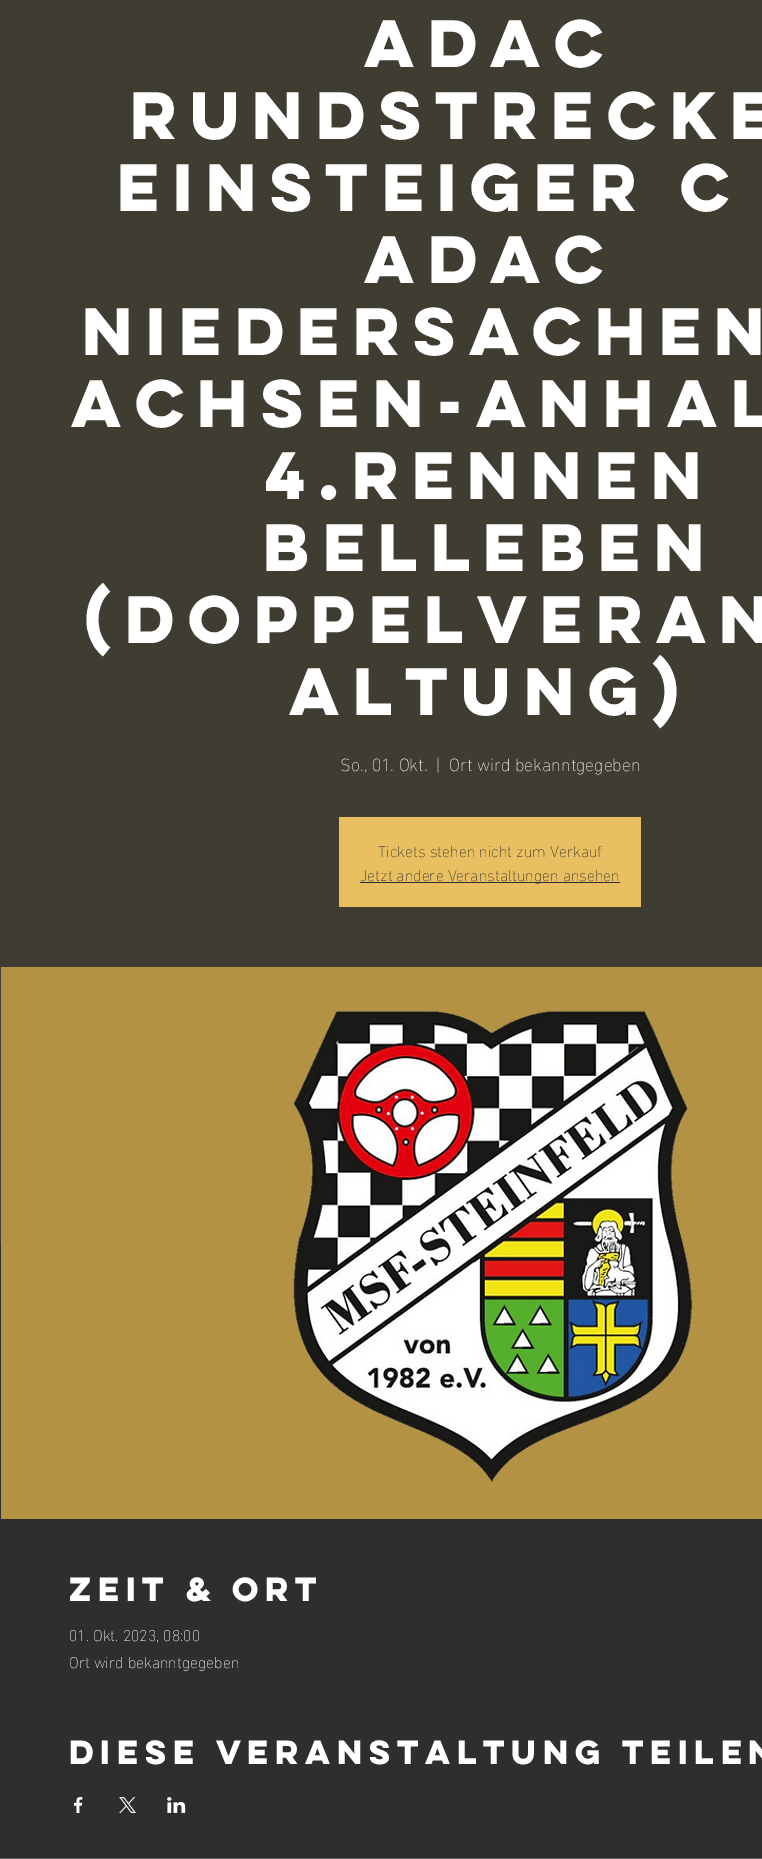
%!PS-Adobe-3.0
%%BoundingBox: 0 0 762 1859
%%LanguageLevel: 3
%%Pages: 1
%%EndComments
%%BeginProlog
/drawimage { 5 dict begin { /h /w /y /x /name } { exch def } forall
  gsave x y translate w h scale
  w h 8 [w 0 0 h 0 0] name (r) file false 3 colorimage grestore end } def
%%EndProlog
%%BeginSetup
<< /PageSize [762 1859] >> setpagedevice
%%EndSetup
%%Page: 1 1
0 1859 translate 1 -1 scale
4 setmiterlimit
0.176 0.18 0.176 setrgbcolor
0 0 762 1859 rectfill
0.247 0.239 0.196 setrgbcolor
0 0 762 1243 rectfill
0.91 0.753 0.38 setrgbcolor
339 817 302 90 rectfill
0.176 0.18 0.176 setrgbcolor
360 882 260 1 rectfill
0.702 0.573 0.267 setrgbcolor
1 967 761 552 rectfill
(images/1.raw) 293 1010 400 472 drawimage
(images/2.raw) 74 1797 9 16 drawimage
(images/3.raw) 119 1797 17 16 drawimage
(images/4.raw) 167 1797 19 16 drawimage
0.392 setgray
0 1858 762 1 rectfill
/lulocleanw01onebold-Bold [60 0 0 -60 0 0] selectfont
1 setgray
364 67 moveto (ADAC) show
130 139 moveto (Rundstrecke) show
117 211 moveto (Einsteiger C) show
364 283 moveto (ADAC) show
82 355 moveto (Niedersachen) show
71 427 moveto (achsen-Anhal) show
265 499 moveto (4.Rennen) show
263 571 moveto (Belleben) show
85 643 moveto (\(Doppelveran) show
289 715 moveto (altung\)) show
/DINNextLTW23-ExtraLight [18 0 0 -18 0 0] selectfont
340 771 moveto (So., 01. Okt.) show
436 771 moveto (|) show
449 771 moveto (Ort wird bekanntgegeben) show
/DINNextLTW23-ExtraLight [16 0 0 -16 0 0] selectfont
0.176 0.18 0.176 setrgbcolor
378 857 moveto (Tickets stehen nicht zum Verkauf) show
360 881 moveto (Jetzt andere Veranstaltungen ansehen) show
/lulocleanw01onebold-Bold [30 0 0 -30 0 0] selectfont
1 setgray
69 1601 moveto (Zeit & Ort) show
/DINNextLTW23-ExtraLight [16 0 0 -16 0 0] selectfont
69 1641 moveto (01. Okt. 2023, 08:00) show
69 1668 moveto (Ort wird bekanntgegeben) show
/lulocleanw01onebold-Bold [30 0 0 -30 0 0] selectfont
69 1764 moveto (Diese Veranstaltung teilen) show
showpage
%%EOF
